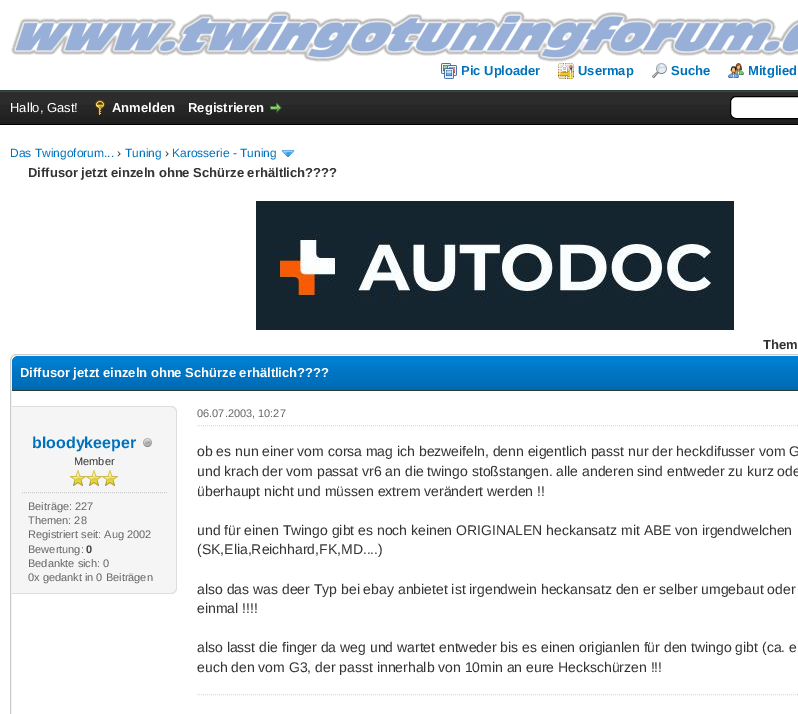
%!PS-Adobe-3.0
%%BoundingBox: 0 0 798 714
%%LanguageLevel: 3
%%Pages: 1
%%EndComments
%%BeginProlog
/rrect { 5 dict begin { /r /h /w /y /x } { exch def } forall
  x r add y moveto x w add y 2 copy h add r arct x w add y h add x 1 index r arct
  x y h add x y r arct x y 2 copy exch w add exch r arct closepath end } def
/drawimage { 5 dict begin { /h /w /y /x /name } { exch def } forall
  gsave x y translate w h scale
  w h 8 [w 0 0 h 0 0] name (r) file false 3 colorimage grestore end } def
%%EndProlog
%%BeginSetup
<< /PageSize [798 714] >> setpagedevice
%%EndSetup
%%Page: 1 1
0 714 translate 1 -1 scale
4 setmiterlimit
1 setgray
0 0 798 714 rectfill
0.149 0.235 0.188 setrgbcolor
0 90 798 1 rectfill
(images/1.raw) 11 11 787 51 drawimage
(images/2.raw) 441 63 16 16 drawimage
(images/3.raw) 558 63 16 16 drawimage
(images/4.raw) 652 63 15 15 drawimage
(images/5.raw) 728 63 16 15 drawimage
(images/6.raw) 0 92 798 32 drawimage
0.267 setgray
0 91 798 1 rectfill
0 setgray
0 124 798 1 rectfill
(images/7.raw) 95 100 10 15 drawimage
(images/8.raw) 270 103 12 10 drawimage
1 setgray
730.5 96.5 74 22 5.5 rrect gsave fill grestore
0 setgray
stroke
(images/9.raw) 281 150 14 7 drawimage
(images/10.raw) 256 201 478 129 drawimage
0.8 setgray
10.5 354.5 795 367 6.5 rrect stroke
(images/11.raw) 12 356 786 34 drawimage
0.149 0.235 0.188 setrgbcolor
12 390 786 1 rectfill
0.961 setgray
newpath 12 406 moveto 171 406 lineto 174.5 406 177 408.5 177 412 curveto 177 588 lineto 177 591.5 174.5 594 171 594 curveto 12 594 lineto closepath fill
0.867 setgray
newpath 12 406 moveto 171 406 lineto 174 406 177 409 177 412 curveto 177 588 lineto 177 591 174 594 171 594 curveto 12 594 lineto closepath 12 407 moveto 171 407 lineto 174 407 176 409 176 412 curveto 176 588 lineto 176 591 174 593 171 593 curveto 12 593 lineto closepath eofill
(images/12.raw) 143 438 9 9 drawimage
(images/13.raw) 70 470 16 16 drawimage
(images/13.raw) 86 470 16 16 drawimage
(images/13.raw) 102 470 16 16 drawimage
0.8 setgray
[1 1] 0 setdash
newpath 22 492.5 moveto 167 492.5 lineto stroke
0.867 setgray
newpath 197 425.5 moveto 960 425.5 lineto stroke
newpath 197 694.5 moveto 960 694.5 lineto stroke
/LiberationSans-Bold [13 0 0 -13 0 0] selectfont
0 0.447 0.737 setrgbcolor
461 75 moveto (Pic Uploader) show
578 75 moveto (Usermap) show
671 75 moveto (Suche) show
748 75 moveto (Mitglied) show
/LiberationSans-Regular [13 0 0 -13 0 0] selectfont
1 setgray
10 112 moveto (Hallo, Gast!) show
/LiberationSans-Bold [13 0 0 -13 0 0] selectfont
112 112 moveto (Anmelden) show
188 112 moveto (Registrieren) show
/LiberationSans-Regular [12 0 0 -12 0 0] selectfont
0 0.447 0.737 setrgbcolor
10 157 moveto (Das Twingoforum...) show
0.2 setgray
117 157 moveto (›) show
0 0.447 0.737 setrgbcolor
125 157 moveto (Tuning) show
0.2 setgray
165 157 moveto (›) show
0 0.447 0.737 setrgbcolor
172 157 moveto (Karosserie - Tuning) show
/LiberationSans-Bold [13 0 0 -13 0 0] selectfont
0.2 setgray
28 177 moveto (Diffusor jetzt einzeln ohne Schürze erhältlich????) show
763 349 moveto (Them) show
1 setgray
20 377 moveto (Diffusor jetzt einzeln ohne Schürze erhältlich????) show
/LiberationSans-Bold [16 0 0 -16 0 0] selectfont
0 0.447 0.737 setrgbcolor
32 448 moveto (bloodykeeper) show
/LiberationSans-Regular [11 0 0 -11 0 0] selectfont
0.2 setgray
74 465 moveto (Member) show
0.4 setgray
28 510 moveto (Beiträge: 227) show
28 524 moveto (Themen: 28) show
28 538 moveto (Registriert seit: Aug 2002) show
28 553 moveto (Bewertung:) show
/LiberationSans-Bold [11 0 0 -11 0 0] selectfont
0.267 setgray
86 553 moveto (0) show
/LiberationSans-Regular [11 0 0 -11 0 0] selectfont
0.4 setgray
28 567 moveto (Bedankte sich: 0) show
28 581 moveto (0x gedankt in 0 Beiträgen) show
197 417 moveto (06.07.2003, 10:27) show
/LiberationSans-Regular [14 0 0 -14 0 0] selectfont
0.2 setgray
197 456 moveto (ob es nun einer vom corsa mag ich bezweifeln, denn eigentlich passt nur der heckdifusser vom G) show
197 476 moveto (und krach der vom passat vr6 an die twingo stoßstangen. alle anderen sind entweder zu kurz ode) show
197 496 moveto (überhaupt nicht und müssen extrem verändert werden !!) show
197 535 moveto (und für einen Twingo gibt es noch keinen ORIGINALEN heckansatz mit ABE von irgendwelchen) show
197 554 moveto (\(SK,Elia,Reichhard,FK,MD....\)) show
197 594 moveto (also das was deer Typ bei ebay anbietet ist irgendwein heckansatz den er selber umgebaut oder) show
197 613 moveto (einmal !!!!) show
197 652 moveto (also lasst die finger da weg und wartet entweder bis es einen origianlen für den twingo gibt \(ca. e) show
197 672 moveto (euch den vom G3, der passt innerhalb von 10min an eure Heckschürzen !!!) show
showpage
%%EOF
